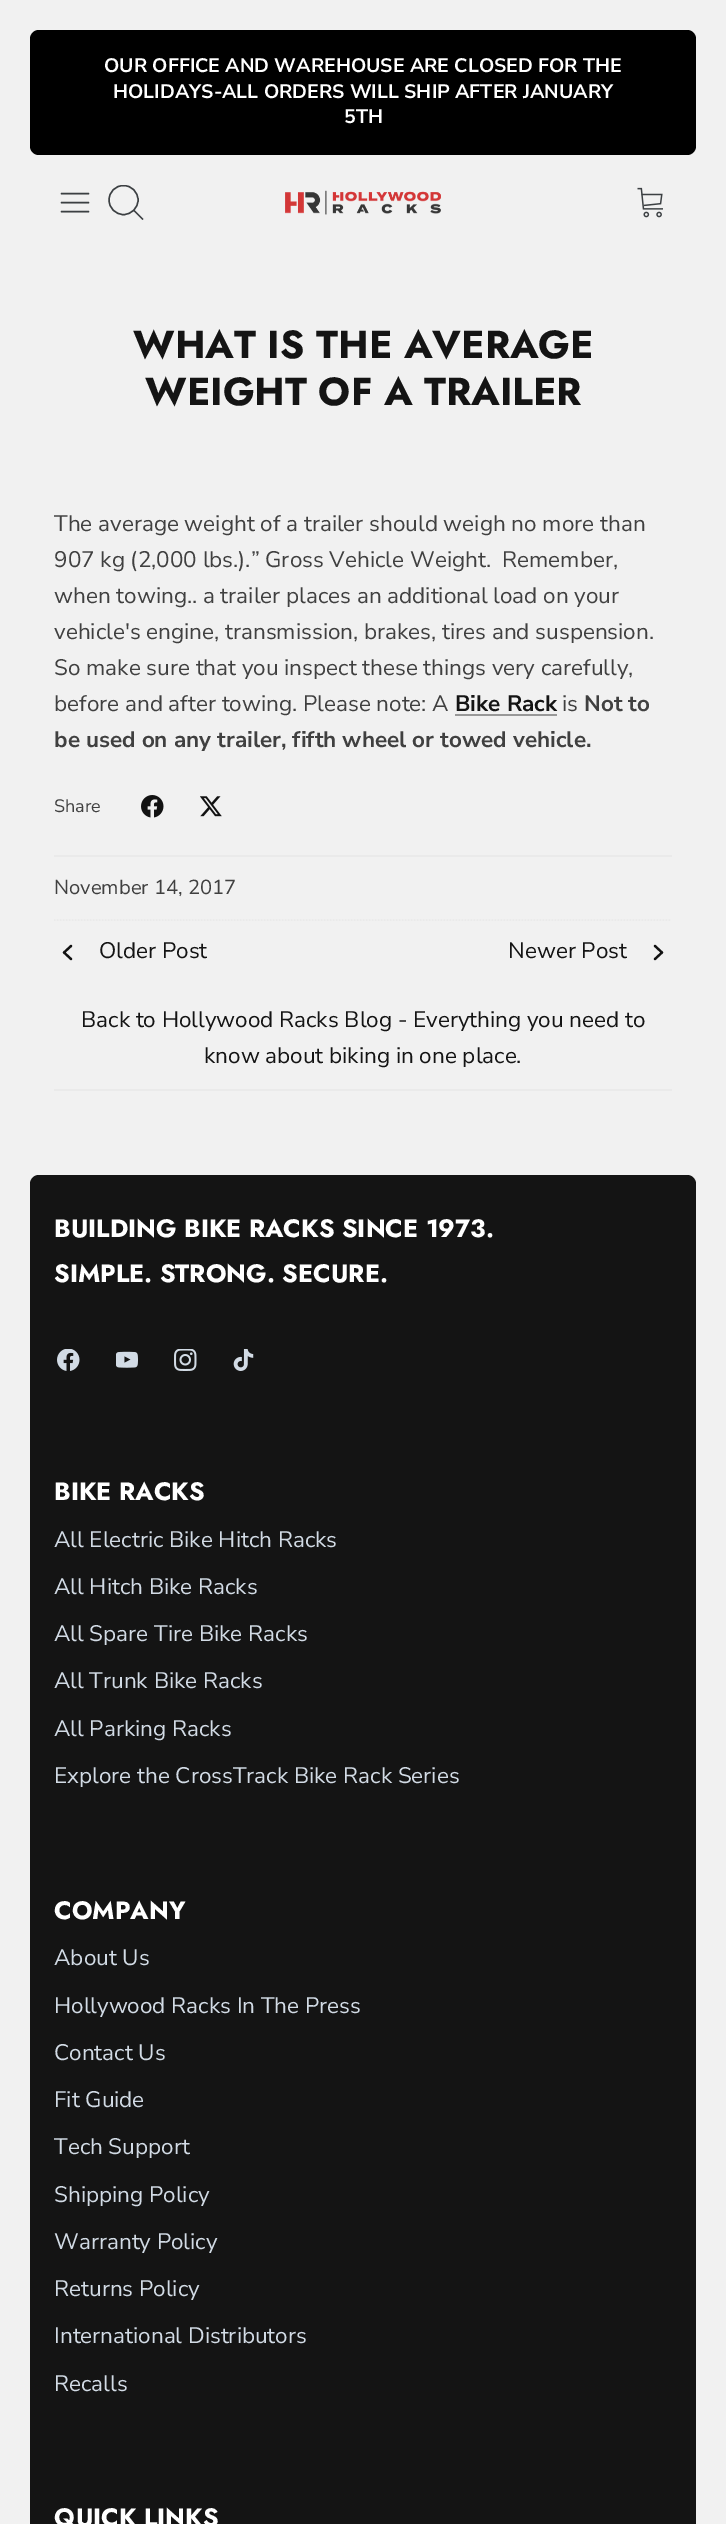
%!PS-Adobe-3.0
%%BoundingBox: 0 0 726 2524
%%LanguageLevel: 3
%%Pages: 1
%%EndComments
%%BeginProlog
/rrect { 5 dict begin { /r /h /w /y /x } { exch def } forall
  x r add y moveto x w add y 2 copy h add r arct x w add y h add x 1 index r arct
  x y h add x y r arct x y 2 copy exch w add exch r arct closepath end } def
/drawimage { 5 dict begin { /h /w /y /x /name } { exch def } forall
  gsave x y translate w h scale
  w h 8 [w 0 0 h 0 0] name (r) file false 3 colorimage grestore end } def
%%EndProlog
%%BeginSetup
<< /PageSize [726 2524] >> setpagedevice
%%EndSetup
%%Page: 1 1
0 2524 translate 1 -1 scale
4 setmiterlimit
0.945 setgray
0 0 726 2524 rectfill
0 setgray
30 30 666 125 9 rrect fill
0.235 0.251 0.263 setrgbcolor
1.5 setlinewidth
1 setlinecap
1 setlinejoin
newpath 61.5 202.5 moveto 88.5 202.5 lineto 61.5 193.5 moveto 88.5 193.5 lineto 61.5 211.5 moveto 88.5 211.5 lineto stroke
gsave
108 185 36 36 rectclip
1.4 setlinewidth
0 setlinecap
0 setlinejoin
newpath 123.5 200 14.5 0 360 arc closepath stroke
grestore
1.4 setlinewidth
2 setlinecap
0 setlinejoin
newpath 134.5 211 moveto 142.5 219 lineto stroke
(images/1.raw) 285 190 156 25 drawimage
(images/2.raw) 637 187 26 31 drawimage
0.596 setgray
455 714 102 2 rectfill
(images/3.raw) 141 795 23 23 drawimage
(images/4.raw) 200 796 22 21 drawimage
0.918 setgray
54 855 618 2 rectfill
1.5 setlinewidth
0 setlinecap
[1.5 1.5] 0 setdash
newpath 54 920 moveto 672 920 lineto stroke
54 1089 618 2 rectfill
0.071 setgray
2.2 setlinewidth
1 setlinecap
1 setlinejoin
[] 0 setdash
newpath 71 959 moveto 64 952.5 lineto 71 946 lineto stroke
newpath 655 959 moveto 662 952.5 lineto 655 946 lineto stroke
0.078 setgray
30 1175 666 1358 9 rrect fill
(images/5.raw) 57 1349 23 22 drawimage
(images/6.raw) 116 1351 22 17 drawimage
(images/7.raw) 174 1349 23 22 drawimage
(images/8.raw) 233 1349 21 22 drawimage
/NunitoSans-Bold [19.5 0 0 -19.5 0 0] selectfont
1 setgray
104 72 moveto (OUR OFFICE AND WAREHOUSE ARE CLOSED FOR THE) show
113 98 moveto (HOLIDAYS-ALL ORDERS WILL SHIP AFTER JANUARY) show
344 123 moveto (5TH) show
/Jost-Bold [39 0 0 -39 0 0] selectfont
0.078 setgray
133 358 moveto (WHAT IS THE AVERAGE) show
145 405 moveto (WEIGHT OF A TRAILER) show
/NunitoSans-Regular [22.5 0 0 -22.5 0 0] selectfont
0.251 setgray
54 531 moveto (The average weight of a trailer should weigh no more than) show
54 567 moveto (907 kg \(2,000 lbs.\).” Gross Vehicle Weight.) show
502 567 moveto (Remember,) show
54 603 moveto (when towing.. a trailer places an additional load on your) show
54 639 moveto (vehicle's engine, transmission, brakes, tires and suspension.) show
54 675 moveto (So make sure that you inspect these things very carefully,) show
54 711 moveto (before and after towing. Please note: A) show
/NunitoSans-Bold [22.5 0 0 -22.5 0 0] selectfont
0.078 setgray
455 711 moveto (Bike Rack) show
/NunitoSans-Regular [22.5 0 0 -22.5 0 0] selectfont
0.251 setgray
562 711 moveto (is) show
/NunitoSans-Bold [22.5 0 0 -22.5 0 0] selectfont
584 711 moveto (Not to) show
54 747 moveto (be used on any trailer, fifth wheel or towed vehicle.) show
/NunitoSans-Regular [18 0 0 -18 0 0] selectfont
54 812 moveto (Share) show
/NunitoSans-Regular [20.25 0 0 -20.25 0 0] selectfont
54 894 moveto (November 14, 2017) show
/NunitoSans-Regular [22.5 0 0 -22.5 0 0] selectfont
0.078 setgray
99 958 moveto (Older Post) show
508 958 moveto (Newer Post) show
81 1027 moveto (Back to Hollywood Racks Blog - Everything you need to) show
204 1063 moveto (know about biking in one place.) show
/Jost-Bold [25.1 0 0 -25.1 0 0] selectfont
1 setgray
54 1237 moveto (BUILDING BIKE RACKS SINCE 1973.) show
54 1282 moveto (SIMPLE. STRONG. SECURE.) show
54 1500 moveto (BIKE RACKS) show
/NunitoSans-Regular [22.5 0 0 -22.5 0 0] selectfont
0.824 0.859 0.898 setrgbcolor
54 1547 moveto (All Electric Bike Hitch Racks) show
54 1594 moveto (All Hitch Bike Racks) show
54 1641 moveto (All Spare Tire Bike Racks) show
54 1688 moveto (All Trunk Bike Racks) show
54 1736 moveto (All Parking Racks) show
54 1783 moveto (Explore the CrossTrack Bike Rack Series) show
/Jost-Bold [25.1 0 0 -25.1 0 0] selectfont
1 setgray
54 1919 moveto (COMPANY) show
/NunitoSans-Regular [22.5 0 0 -22.5 0 0] selectfont
0.824 0.859 0.898 setrgbcolor
54 1965 moveto (About Us) show
54 2013 moveto (Hollywood Racks In The Press) show
54 2060 moveto (Contact Us) show
54 2107 moveto (Fit Guide) show
54 2154 moveto (Tech Support) show
54 2202 moveto (Shipping Policy) show
54 2249 moveto (Warranty Policy) show
54 2296 moveto (Returns Policy) show
54 2343 moveto (International Distributors) show
54 2391 moveto (Recalls) show
/Jost-Bold [25.1 0 0 -25.1 0 0] selectfont
1 setgray
54 2526 moveto (QUICK LINKS) show
showpage
%%EOF
